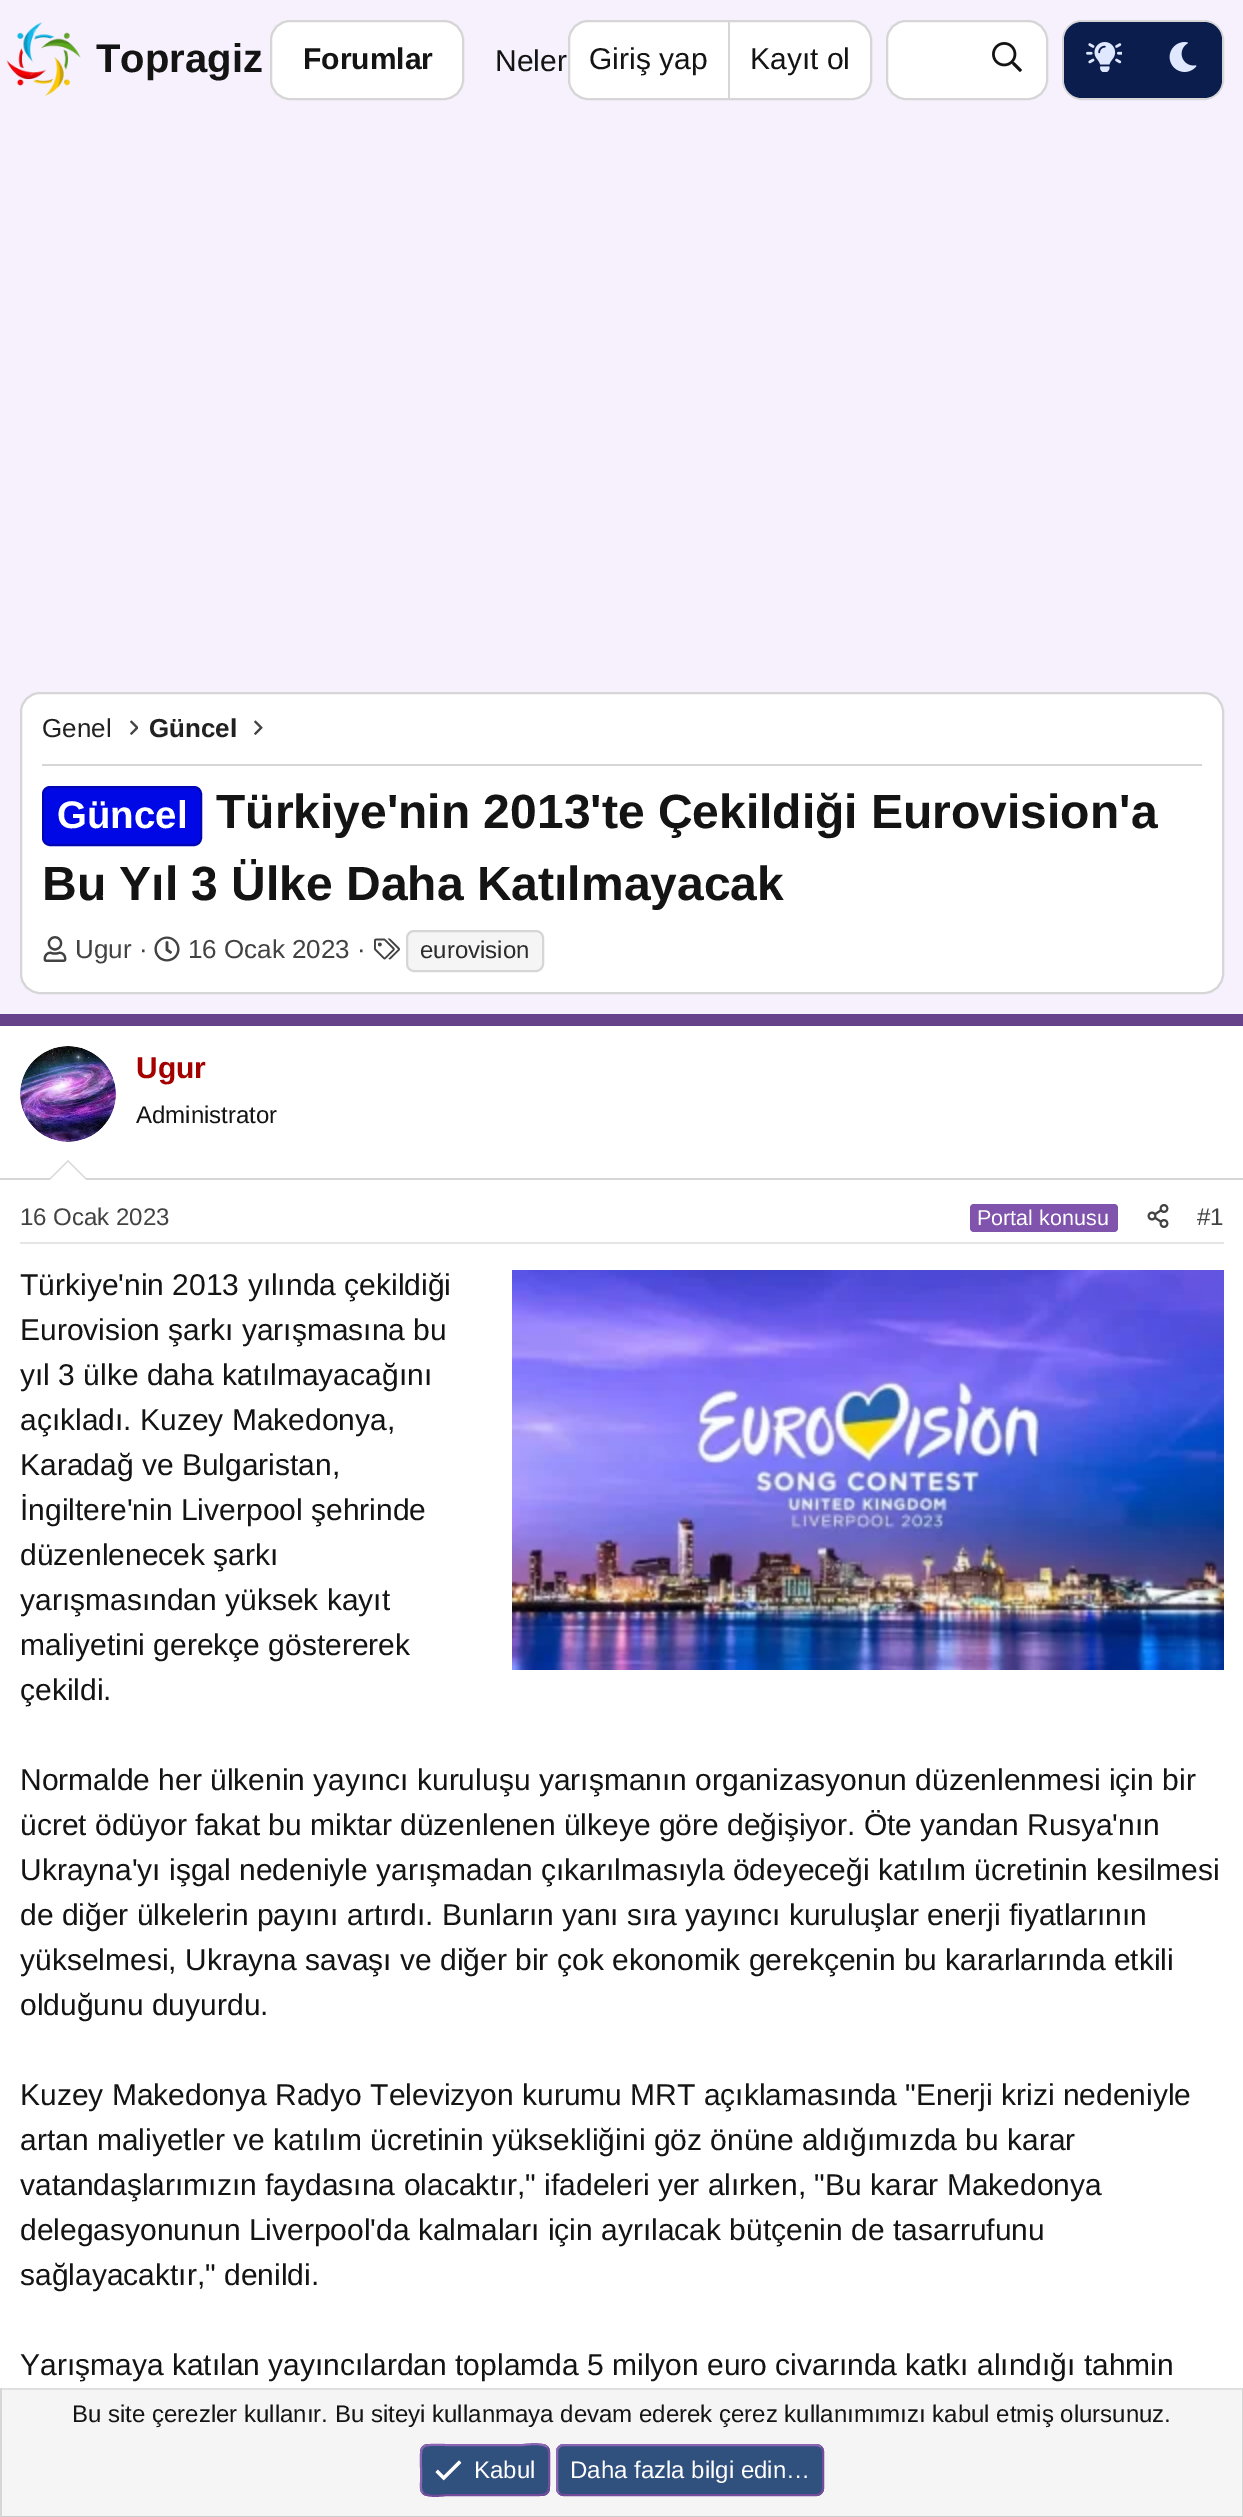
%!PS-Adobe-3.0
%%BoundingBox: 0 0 1243 2517
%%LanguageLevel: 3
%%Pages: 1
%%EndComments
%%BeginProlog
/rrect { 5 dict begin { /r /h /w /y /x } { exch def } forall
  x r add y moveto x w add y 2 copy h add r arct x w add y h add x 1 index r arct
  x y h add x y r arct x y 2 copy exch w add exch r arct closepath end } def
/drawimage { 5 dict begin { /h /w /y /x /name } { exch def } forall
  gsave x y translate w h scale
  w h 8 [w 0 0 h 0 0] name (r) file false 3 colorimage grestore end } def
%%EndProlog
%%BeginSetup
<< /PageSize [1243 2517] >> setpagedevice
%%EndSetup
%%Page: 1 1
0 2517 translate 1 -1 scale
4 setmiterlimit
0.969 0.945 0.992 setrgbcolor
0 0 1243 2517 rectfill
(images/1.raw) 6 22 75 74 drawimage
1 setgray
271 21 192 78 19 rrect gsave fill grestore
0.839 setgray
2 setlinewidth
stroke
1 setgray
569 21 302 78 19 rrect gsave fill grestore
0.839 setgray
stroke
728 22 2 76 rectfill
1 setgray
887 21 160 78 19 rrect gsave fill grestore
0.839 setgray
stroke
(images/2.raw) 992 42 30 30 drawimage
1063 21 160 78 19 rrect stroke
0.043 0.114 0.302 setrgbcolor
newpath 1082 22 moveto 1144 22 lineto 1144 98 lineto 1082 98 lineto 1072 98 1064 90 1064 80 curveto 1064 40 lineto 1064 30 1072 22 1082 22 curveto closepath fill
(images/3.raw) 1086 42 36 30 drawimage
newpath 1144 22 moveto 1204 22 lineto 1214 22 1222 30 1222 40 curveto 1222 80 lineto 1222 90 1214 98 1204 98 curveto 1144 98 lineto closepath fill
(images/4.raw) 1169 42 28 30 drawimage
1 setgray
21 693 1202 300 19 rrect gsave fill grestore
0.839 setgray
stroke
42 764 1160 2 rectfill
(images/5.raw) 130 720 8 15 drawimage
(images/6.raw) 254 720 9 15 drawimage
0 0.031 0.902 setrgbcolor
43 787 158 58 7 rrect gsave fill grestore
0 0.024 0.702 setrgbcolor
stroke
(images/7.raw) 43 936 24 26 drawimage
(images/8.raw) 154 936 26 26 drawimage
(images/9.raw) 374 938 26 22 drawimage
0.961 setgray
407 931 136 40 7 rrect gsave fill grestore
0.839 setgray
stroke
1 setgray
0 1026 1243 1362 rectfill
0.4 0.259 0.541 setrgbcolor
0 1014 1243 12 rectfill
0.839 setgray
0 1178 1243 2 rectfill
(images/10.raw) 20 1046 96 96 drawimage
newpath 88 1180 moveto 48 1180 lineto 68 1160 lineto closepath fill
1 setgray
newpath 86 1180 moveto 50 1180 lineto 68 1162 lineto closepath fill
0.902 setgray
20 1242 1204 2 rectfill
0.502 0.325 0.675 setrgbcolor
970 1204 148 28 4 rrect fill
(images/11.raw) 1147 1204 22 24 drawimage
(images/12.raw) 512 1270 712 400 drawimage
0.961 setgray
2 2390 1240 126 rectfill
0.878 setgray
0 2388 1243 2 rectfill
0.839 setgray
1242 2388 1 129 rectfill
0.8 setgray
0 2516 1243 1 rectfill
0.839 setgray
0 2388 2 129 rectfill
0.188 0.314 0.494 setrgbcolor
420 2444 130 52 8 rrect fill
0.451 0.294 0.608 setrgbcolor
newpath 547 2447 moveto 550 2450 549 2454.5 549 2458 curveto 549 2470 lineto 549 2498 552.5 2495 523 2495 curveto 447 2495 lineto 446.5 2495 428 2498 423 2493 curveto stroke
0.549 0.392 0.706 setrgbcolor
newpath 423 2493 moveto 420 2490 421 2485.5 421 2482 curveto 421 2470 lineto 421 2442 417.5 2445 447 2445 curveto 523 2445 lineto 523.5 2445 542 2442 547 2447 curveto stroke
(images/13.raw) 435 2460 27 21 drawimage
0.188 0.314 0.494 setrgbcolor
556 2444 268 52 8 rrect fill
0.451 0.294 0.608 setrgbcolor
newpath 821 2447 moveto 822.5 2448.5 823 2450 823 2452 curveto 823 2488 lineto 823 2490 822.5 2491.5 821 2493 curveto 819.5 2494.5 818 2495 816 2495 curveto 564 2495 lineto 562 2495 560.5 2494.5 559 2493 curveto stroke
0.549 0.392 0.706 setrgbcolor
newpath 559 2493 moveto 557.5 2491.5 557 2490 557 2488 curveto 557 2452 lineto 557 2450 557.5 2448.5 559 2447 curveto 560.5 2445.5 562 2445 564 2445 curveto 816 2445 lineto 818 2445 819.5 2445.5 821 2447 curveto stroke
/LiberationSans-Bold [40 0 0 -40 0 0] selectfont
0.078 setgray
96 72 moveto (Topragiz) show
/LiberationSans-Bold [30 0 0 -30 0 0] selectfont
303 69 moveto (Forumlar) show
/LiberationSans-Regular [30 0 0 -30 0 0] selectfont
495 71 moveto (Neler) show
589 69 moveto (Giriş yap) show
750 69 moveto (Kayıt ol) show
/LiberationSans-Regular [26 0 0 -26 0 0] selectfont
0.129 setgray
42 737 moveto (Genel) show
/LiberationSans-Bold [26 0 0 -26 0 0] selectfont
149 737 moveto (Güncel) show
/LiberationSans-Bold [38.5 0 0 -38.5 0 0] selectfont
1 setgray
57 828 moveto (Güncel) show
/LiberationSans-Bold [48 0 0 -48 0 0] selectfont
0.078 setgray
216 828 moveto (Türkiye'nin 2013'te Çekildiği Eurovision'a) show
42 900 moveto (Bu Yıl 3 Ülke Daha Katılmayacak) show
/LiberationSans-Regular [26 0 0 -26 0 0] selectfont
0.263 0.259 0.259 setrgbcolor
75 958 moveto (Ugur ·) show
188 958 moveto (16 Ocak 2023 ·) show
/LiberationSans-Regular [24 0 0 -24 0 0] selectfont
0.173 0.169 0.169 setrgbcolor
420 958 moveto (eurovision) show
/LiberationSans-Bold [30 0 0 -30 0 0] selectfont
0.639 0 0 setrgbcolor
136 1078 moveto (Ugur) show
/LiberationSans-Regular [24 0 0 -24 0 0] selectfont
0.078 setgray
136 1123 moveto (Administrator) show
0.263 0.259 0.259 setrgbcolor
20 1225 moveto (16 Ocak 2023) show
/LiberationSans-Regular [21.5 0 0 -21.5 0 0] selectfont
1 setgray
977 1225 moveto (Portal konusu) show
/LiberationSans-Regular [24 0 0 -24 0 0] selectfont
0.263 0.259 0.259 setrgbcolor
1197 1225 moveto (#1) show
/LiberationSans-Regular [30 0 0 -30 0 0] selectfont
0.078 setgray
20 1295 moveto (Türkiye'nin 2013 yılında çekildiği) show
20 1340 moveto (Eurovision şarkı yarışmasına bu) show
20 1385 moveto (yıl 3 ülke daha katılmayacağını) show
20 1430 moveto (açıkladı. Kuzey Makedonya,) show
20 1475 moveto (Karadağ ve Bulgaristan,) show
20 1520 moveto (İngiltere'nin Liverpool şehrinde) show
20 1565 moveto (düzenlenecek şarkı) show
20 1610 moveto (yarışmasından yüksek kayıt) show
20 1655 moveto (maliyetini gerekçe göstererek) show
20 1700 moveto (çekildi.) show
20 1790 moveto (Normalde her ülkenin yayıncı kuruluşu yarışmanın organizasyonun düzenlenmesi için bir) show
20 1835 moveto (ücret ödüyor fakat bu miktar düzenlenen ülkeye göre değişiyor. Öte yandan Rusya'nın) show
20 1880 moveto (Ukrayna'yı işgal nedeniyle yarışmadan çıkarılmasıyla ödeyeceği katılım ücretinin kesilmesi) show
20 1925 moveto (de diğer ülkelerin payını artırdı. Bunların yanı sıra yayıncı kuruluşlar enerji fiyatlarının) show
20 1970 moveto (yükselmesi, Ukrayna savaşı ve diğer bir çok ekonomik gerekçenin bu kararlarında etkili) show
20 2015 moveto (olduğunu duyurdu.) show
20 2105 moveto (Kuzey Makedonya Radyo Televizyon kurumu MRT açıklamasında "Enerji krizi nedeniyle) show
20 2150 moveto (artan maliyetler ve katılım ücretinin yüksekliğini göz önüne aldığımızda bu karar) show
20 2195 moveto (vatandaşlarımızın faydasına olacaktır," ifadeleri yer alırken, "Bu karar Makedonya) show
20 2240 moveto (delegasyonunun Liverpool'da kalmaları için ayrılacak bütçenin de tasarrufunu) show
20 2285 moveto (sağlayacaktır," denildi.) show
20 2375 moveto (Yarışmaya katılan yayıncılardan toplamda 5 milyon euro civarında katkı alındığı tahmin) show
/LiberationSans-Regular [24 0 0 -24 0 0] selectfont
72 2422 moveto (Bu site çerezler kullanır. Bu siteyi kullanmaya devam ederek çerez kullanımımızı kabul etmiş olursunuz.) show
1 setgray
474 2478 moveto (Kabul) show
570 2478 moveto (Daha fazla bilgi edin…) show
showpage
%%EOF
